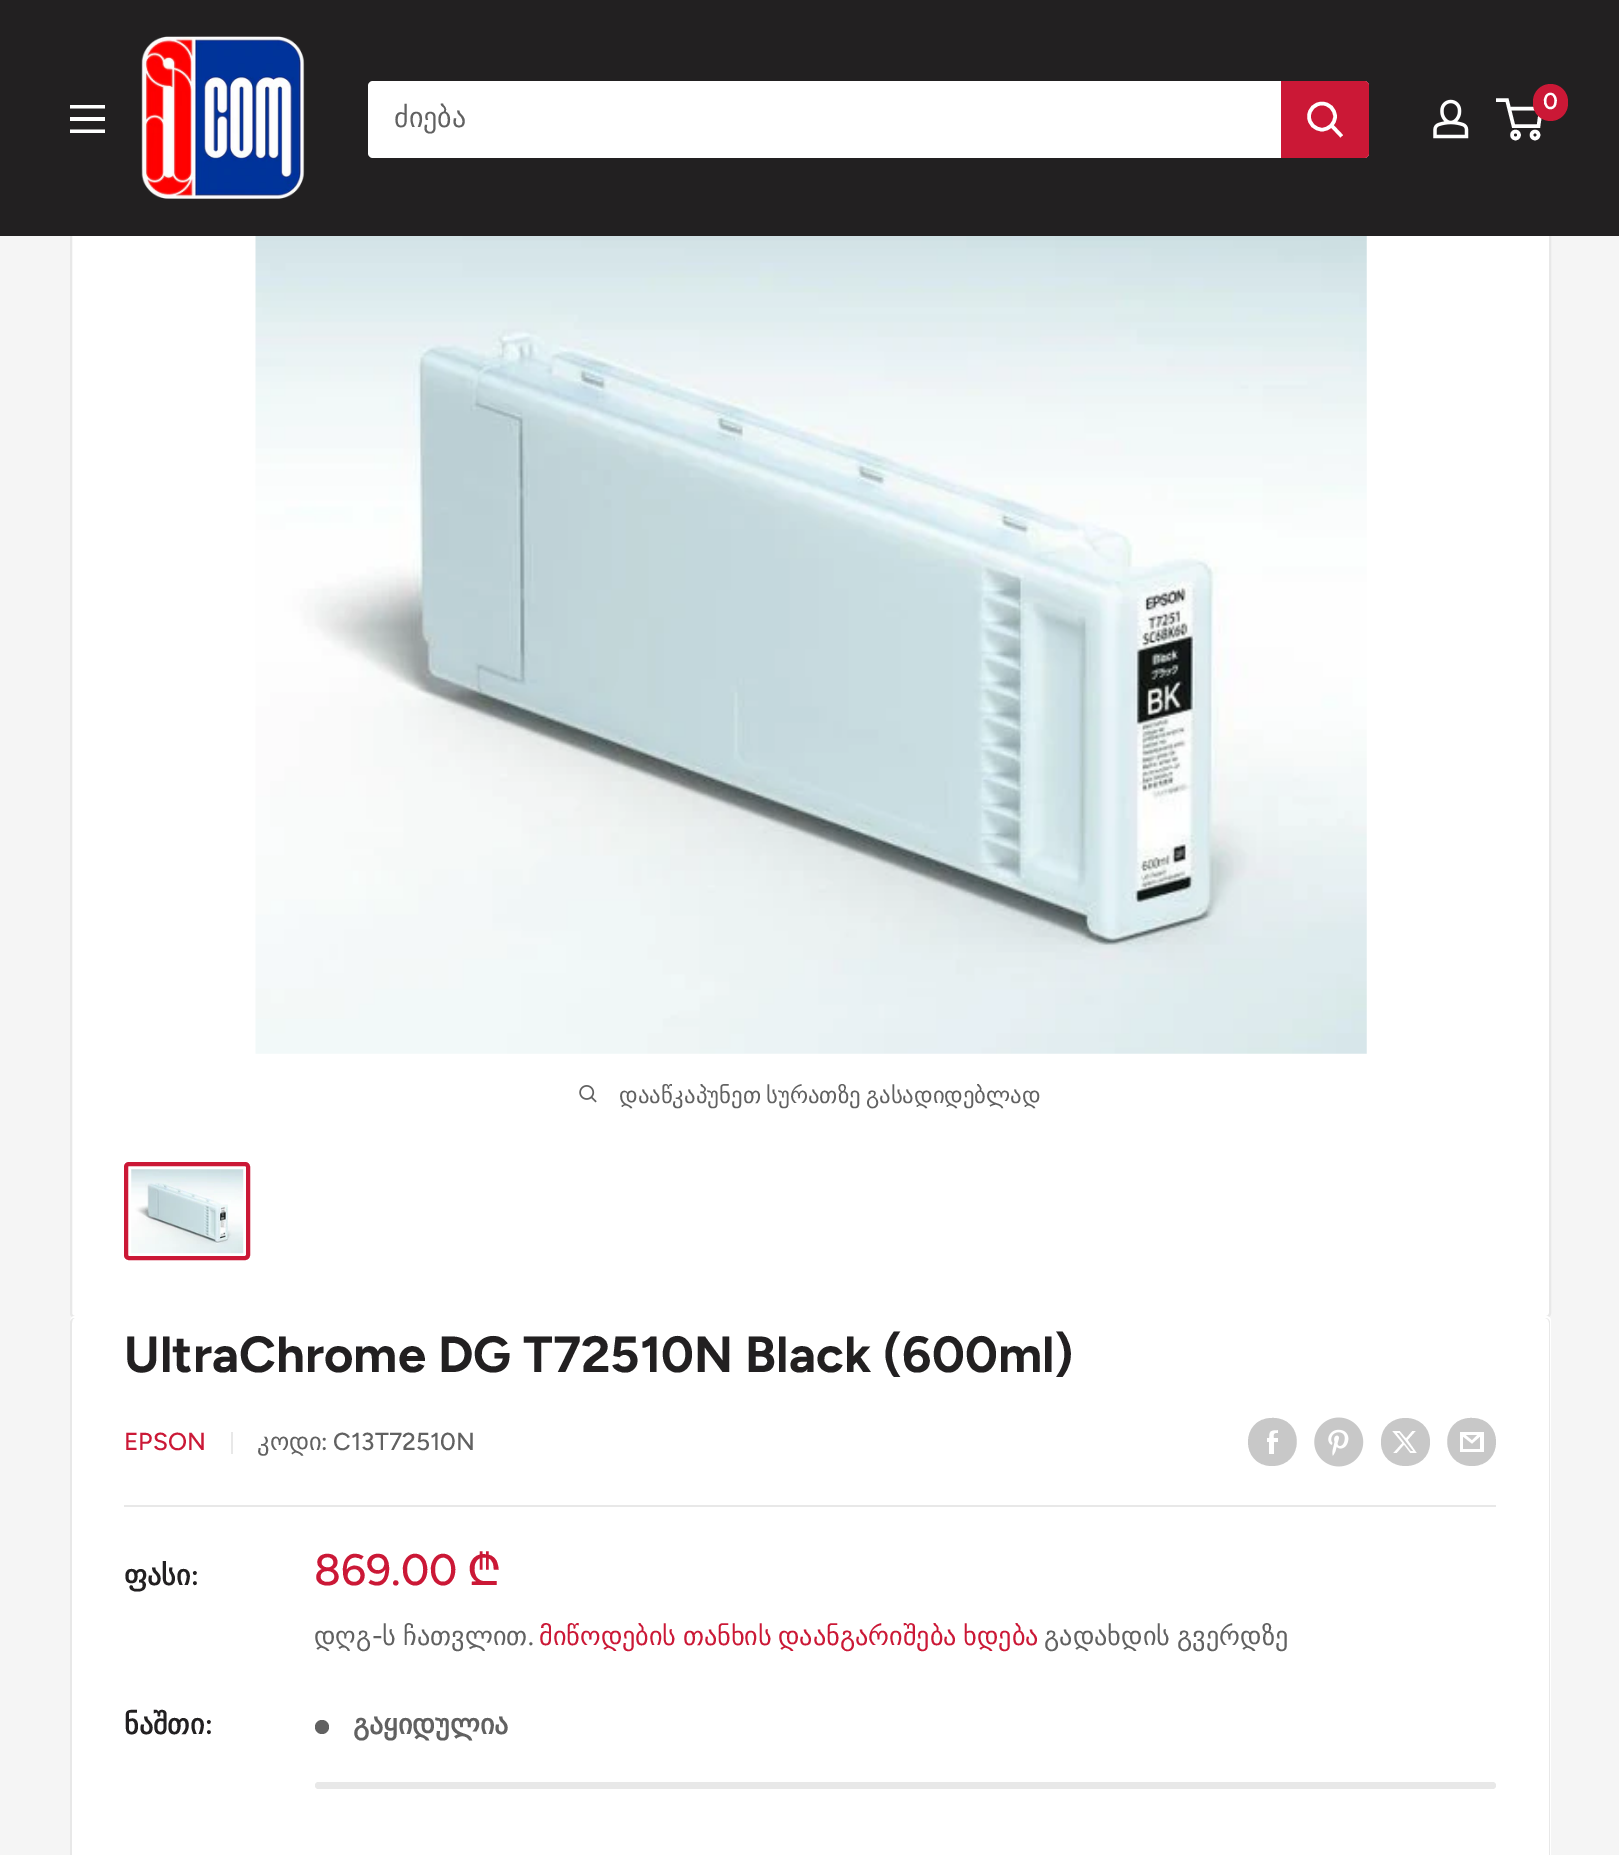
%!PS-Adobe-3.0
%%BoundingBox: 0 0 1619 1855
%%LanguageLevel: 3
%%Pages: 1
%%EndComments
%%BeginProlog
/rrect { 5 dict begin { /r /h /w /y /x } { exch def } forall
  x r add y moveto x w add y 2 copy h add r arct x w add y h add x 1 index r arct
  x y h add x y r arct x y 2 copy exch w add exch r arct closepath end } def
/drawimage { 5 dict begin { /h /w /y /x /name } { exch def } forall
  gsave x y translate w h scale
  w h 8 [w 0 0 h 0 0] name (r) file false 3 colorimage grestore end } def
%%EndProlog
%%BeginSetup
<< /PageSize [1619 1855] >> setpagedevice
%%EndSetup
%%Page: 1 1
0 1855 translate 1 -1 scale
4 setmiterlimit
0.961 setgray
0 0 1619 1855 rectfill
1 setgray
71 167 1479 1150 4 rrect gsave fill grestore
0.91 setgray
2 setlinewidth
stroke
0.133 0.125 0.129 setrgbcolor
0 0 1619 236 rectfill
(images/1.raw) 141 36 164 163 drawimage
(images/2.raw) 1433 99 36 40 drawimage
1 setgray
3.5 setlinewidth
newpath 1515.5 135 3.5 0 360 arc closepath stroke
newpath 1535 135 3.5 0 360 arc closepath stroke
newpath 1509 108.5 moveto 1541 108.5 lineto 1538.5 126 lineto 1513.5 126 lineto 1507 100 lineto 1496 100 lineto stroke
0.796 0.094 0.212 setrgbcolor
1533 84 35 37 17.5 rrect fill
1 setgray
newpath 70 129.5 moveto 105 129.5 lineto 105 133 lineto 70 133 lineto closepath 70 105 moveto 105 105 lineto 105 108.5 lineto 70 108.5 lineto closepath 70 117 moveto 105 117 lineto 105 121 lineto 70 121 lineto closepath eofill
368 81 1001 77 5 rrect fill
0.796 0.094 0.212 setrgbcolor
newpath 1281 81 moveto 1364 81 lineto 1367 81 1369 83 1369 86 curveto 1369 153 lineto 1369 156 1367 158 1364 158 curveto 1281 158 lineto closepath fill
1 setgray
2 setlinecap
newpath 1340.5 135 moveto 1332 126 lineto stroke
0 setlinecap
newpath 1322 116.5 13 0 360 arc closepath stroke
(images/3.raw) 255 236 1112 818 drawimage
(images/4.raw) 579 1085 18 18 drawimage
0.796 0.094 0.212 setrgbcolor
4 setlinewidth
126 1164 122 94 3 rrect stroke
(images/5.raw) 131 1169 113 85 drawimage
1 setgray
newpath 75 1316 moveto 71 1316 70 1320 70 1323 curveto 70 1320 72 1318 75 1318 curveto 1545 1318 lineto 1548 1318 1550 1320 1550 1323 curveto 1550 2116 lineto 1551 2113 lineto 1551 1321 lineto 1551 1318 1549 1316 1546 1316 curveto closepath fill
70 1318 1481 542 5 rrect fill
0.91 setgray
newpath 75 1318 moveto 1545 1318 lineto 1548 1318 1550 1320 1550 1323 curveto 1550 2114 lineto 1550 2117 1548 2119 1545 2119 curveto 75 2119 lineto 72 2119 70 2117 70 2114 curveto 70 1323 lineto 70 1320 72 1318 75 1318 curveto closepath 75 1318 moveto 1545 1318 lineto 1547 1318 1549 1320 1549 1323 curveto 1549 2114 lineto 1549 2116 1547 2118 1545 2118 curveto 75 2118 lineto 73 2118 72 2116 72 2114 curveto 72 1323 lineto 72 1320 73 1318 75 1318 curveto closepath eofill
231 1432 2 22 rectfill
0.784 setgray
newpath 1272 1466 moveto 1240 1466 1240 1418 1272 1418 curveto 1305 1417 1305 1466 1272 1466 curveto closepath 1278 1438 moveto 1274 1438 lineto 1274 1435 1273 1433 1278 1433 curveto 1278 1430 lineto 1270 1430 1269 1431 1269 1438 curveto 1267 1438 lineto 1267 1442 lineto 1269 1442 lineto 1269 1454 lineto 1274 1454 lineto 1274 1442 lineto 1278 1442 lineto closepath eofill
(images/6.raw) 1314 1417 50 50 drawimage
newpath 1430 1442 moveto 1430 1474 1381 1474 1381 1442 curveto 1381 1410 1430 1410 1430 1442 curveto closepath 1416 1431 moveto 1412 1431 lineto 1406 1438 lineto 1400 1431 lineto 1392 1431 lineto 1402 1443 lineto 1393 1453 lineto 1397 1453 lineto 1404 1445 lineto 1410 1453 lineto 1417 1453 lineto 1408 1440 lineto closepath 1413 1451 moveto 1411 1451 lineto 1397 1433 lineto 1399 1433 lineto closepath eofill
newpath 1472 1466 moveto 1439 1466 1439 1417 1472 1418 curveto 1504 1418 1504 1466 1472 1466 curveto closepath 1466 1435 moveto 1477 1435 lineto 1472 1440 lineto closepath 1480 1437 moveto 1480 1449 lineto 1463 1449 lineto 1463 1437 lineto 1472 1444 lineto closepath 1484 1432 moveto 1460 1432 lineto 1460 1452 lineto 1484 1452 lineto closepath fill
0.91 setgray
124 1505 1372 2 rectfill
0.38 setgray
newpath 322 1727 7 0 360 arc closepath fill
0.91 setgray
315 1782 1181 7 3.5 rrect fill
/Figtree-SemiBold [23 0 0 -23 0 0] selectfont
1 setgray
1543 109 moveto (0) show
/DejaVuSans-Regular [28 0 0 -28 0 0] selectfont
0.38 setgray
394 127 moveto (ძიება) show
/DejaVuSans-Regular [22.75 0 0 -22.75 0 0] selectfont
619 1103 moveto -2 0 32 (დააწკაპუნეთ სურათზე გასადიდებლად) widthshow
/Figtree-Bold [50.75 0 0 -50.75 0 0] selectfont
0.133 0.125 0.129 setrgbcolor
124 1372 moveto (UltraChrome DG T72510N Black \(600ml\)) show
/Figtree-Medium [24.5 0 0 -24.5 0 0] selectfont
0.796 0.094 0.212 setrgbcolor
124 1450 moveto (EPSON) show
/DejaVuSans-Regular [24.5 0 0 -24.5 0 0] selectfont
0.38 setgray
257 1450 moveto (კოდი) show
/Figtree-Medium [24.5 0 0 -24.5 0 0] selectfont
321 1450 moveto (: C13T72510N) show
/DejaVuSans-Bold [28 0 0 -28 0 0] selectfont
0.133 0.125 0.129 setrgbcolor
124 1585 moveto (ფასი) show
/Figtree-SemiBold [28 0 0 -28 0 0] selectfont
191 1585 moveto (:) show
/Figtree-Medium [44 0 0 -44 0 0] selectfont
0.796 0.094 0.212 setrgbcolor
314 1585 moveto (869.00) show
/NotoSans-Medium [44 0 0 -44 0 0] selectfont
467 1585 moveto (₾) show
/DejaVuSans-Regular [26.25 0 0 -26.25 0 0] selectfont
0.38 setgray
314 1645 moveto (დღგ) show
/Figtree-Medium [26.25 0 0 -26.25 0 0] selectfont
372 1645 moveto (-) show
/DejaVuSans-Regular [26.25 0 0 -26.25 0 0] selectfont
382 1645 moveto -1 0 32 (ს ჩათვლით) widthshow
0.796 0.094 0.212 setrgbcolor
539 1645 moveto -2 0 32 (მიწოდების თანხის დაანგარიშება ხდება) widthshow
0.38 setgray
1044 1645 moveto -1 0 32 (გადახდის გვერდზე) widthshow
/Figtree-Medium [26.25 0 0 -26.25 0 0] selectfont
528 1645 moveto (.) show
/DejaVuSans-Bold [28 0 0 -28 0 0] selectfont
0.133 0.125 0.129 setrgbcolor
124 1734 moveto (ნაშთი) show
/Figtree-SemiBold [28 0 0 -28 0 0] selectfont
205 1734 moveto (:) show
/DejaVuSans-Bold [28 0 0 -28 0 0] selectfont
0.38 setgray
353 1734 moveto (გაყიდულია) show
showpage
%%EOF
